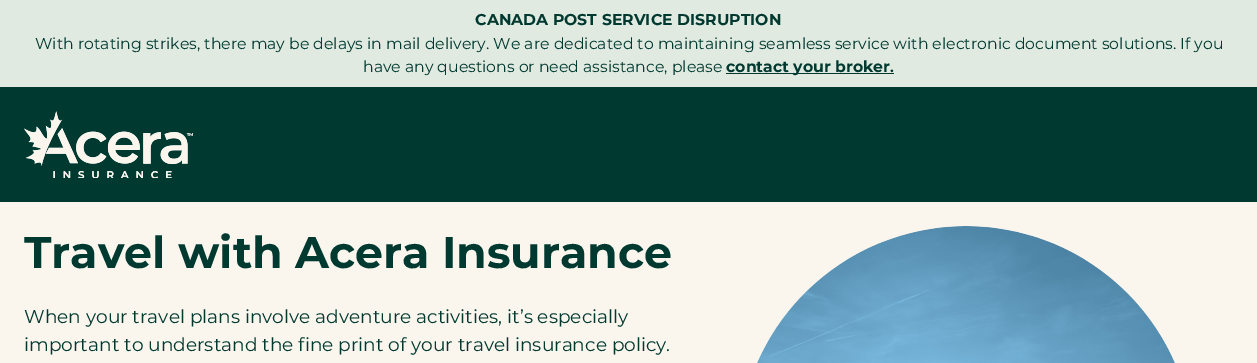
%!PS-Adobe-3.0
%%BoundingBox: 0 0 1257 363
%%LanguageLevel: 3
%%Pages: 1
%%EndComments
%%BeginProlog
/drawimage { 5 dict begin { /h /w /y /x /name } { exch def } forall
  gsave x y translate w h scale
  w h 8 [w 0 0 h 0 0] name (r) file false 3 colorimage grestore end } def
%%EndProlog
%%BeginSetup
<< /PageSize [1257 363] >> setpagedevice
%%EndSetup
%%Page: 1 1
0 363 translate 1 -1 scale
4 setmiterlimit
0.98 0.965 0.933 setrgbcolor
0 0 1257 363 rectfill
0.882 0.918 0.882 setrgbcolor
0 0 1257 87 rectfill
0 0.224 0.184 setrgbcolor
726 73 168 1 rectfill
0 87 1257 115 rectfill
(images/1.raw) 24 111 169 67 drawimage
(images/2.raw) 757 226 418 137 drawimage
/Montserrat-Bold [15.7 0 0 -15.7 0 0] selectfont
475 25 moveto (CANADA POST SERVICE DISRUPTION) show
/Montserrat-Regular [15.7 0 0 -15.7 0 0] selectfont
35 49 moveto (With rotating strikes, there may be delays in mail delivery. We are dedicated to maintaining seamless service with electronic document solutions. If you) show
363 72 moveto (have any questions or need assistance, please) show
/Montserrat-Bold [15.7 0 0 -15.7 0 0] selectfont
726 72 moveto (contact your broker) show
/Montserrat-SemiBold [15.7 0 0 -15.7 0 0] selectfont
890 72 moveto (.) show
/Montserrat-Bold [44.25 0 0 -44.25 0 0] selectfont
24 268 moveto (Travel with Acera Insurance) show
/Montserrat-Regular [18.6 0 0 -18.6 0 0] selectfont
24 323 moveto (When your travel plans involve adventure activities, it’s especially) show
24 351 moveto (important to understand the fine print of your travel insurance policy.) show
showpage
%%EOF
